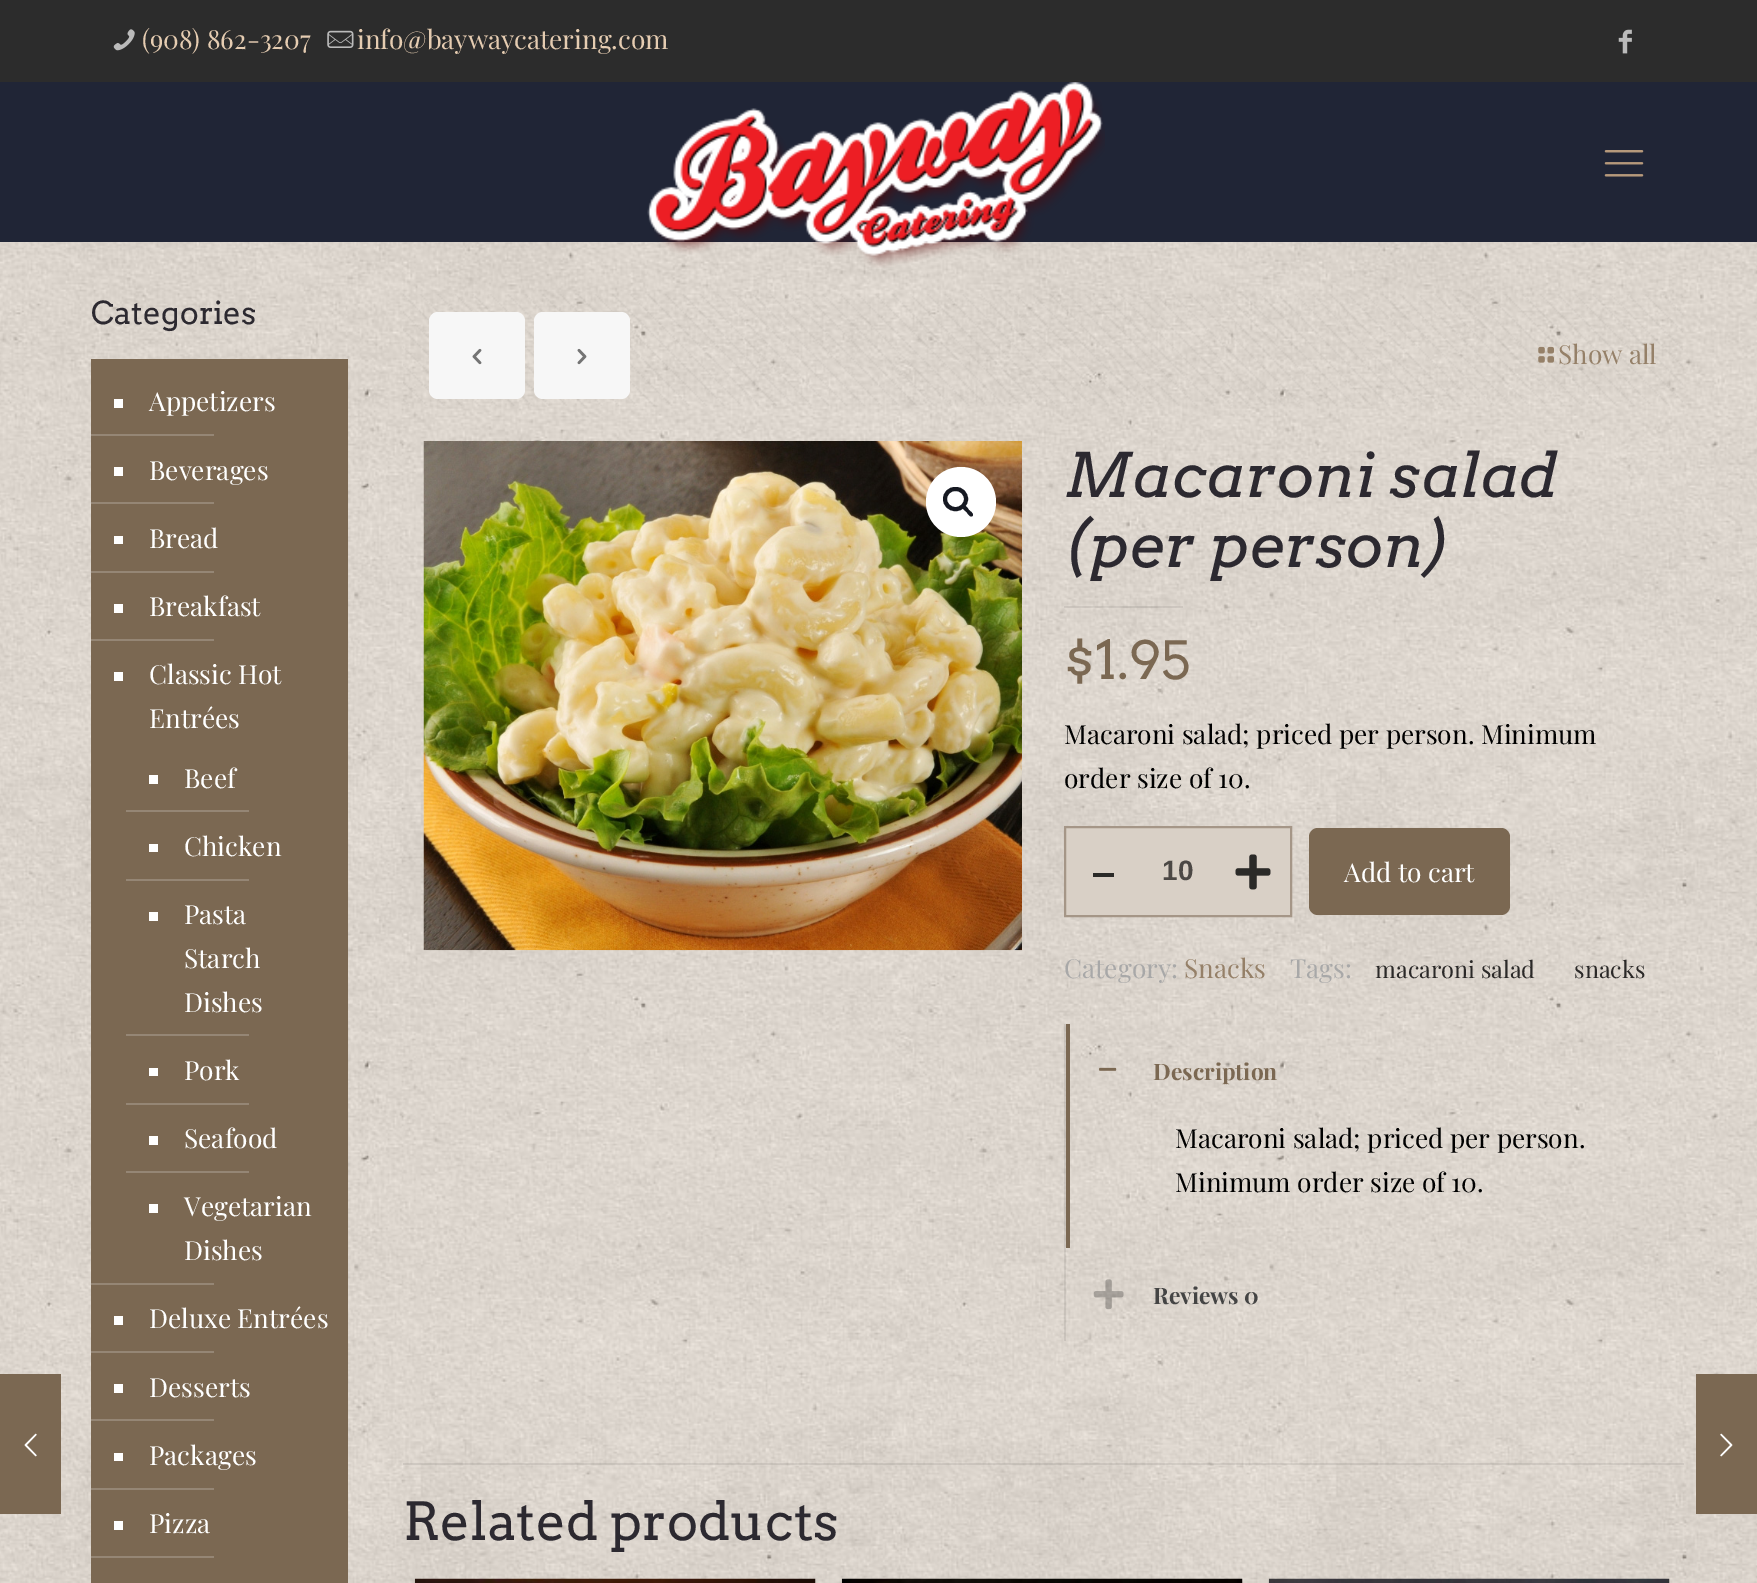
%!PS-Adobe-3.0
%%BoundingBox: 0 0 1757 1583
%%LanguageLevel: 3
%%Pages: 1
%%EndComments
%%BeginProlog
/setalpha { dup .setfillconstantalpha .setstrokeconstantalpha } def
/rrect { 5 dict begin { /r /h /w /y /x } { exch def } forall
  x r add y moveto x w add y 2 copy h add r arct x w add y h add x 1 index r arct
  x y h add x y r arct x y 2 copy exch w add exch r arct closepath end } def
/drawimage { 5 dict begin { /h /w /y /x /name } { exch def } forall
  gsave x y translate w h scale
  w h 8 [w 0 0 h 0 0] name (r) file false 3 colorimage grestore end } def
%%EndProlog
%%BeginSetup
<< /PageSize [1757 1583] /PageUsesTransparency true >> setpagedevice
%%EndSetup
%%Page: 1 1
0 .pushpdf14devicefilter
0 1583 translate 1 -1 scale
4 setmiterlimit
1 setgray
0 0 1757 1583 rectfill
(images/1.raw) 0 242 1757 1341 drawimage
0.482 0.408 0.322 setrgbcolor
0 1374 61 140 rectfill
(images/2.raw) 24 1433 13 24 drawimage
0.173 setgray
0 0 1757 82 rectfill
(images/3.raw) 113 29 22 22 drawimage
(images/4.raw) 327 30 27 18 drawimage
(images/5.raw) 1618 29 14 25 drawimage
0.125 0.145 0.212 setrgbcolor
0 82 1757 160 rectfill
(images/6.raw) 647 82 458 186 drawimage
(images/7.raw) 1604 150 40 27 drawimage
0.482 0.408 0.322 setrgbcolor
91 359 257 1224 rectfill
1 setgray
114 399 9 9 rectfill
0.584 0.525 0.459 setrgbcolor
91 434 123 2 rectfill
1 setgray
114 467 9 9 rectfill
0.584 0.525 0.459 setrgbcolor
91 502 123 2 rectfill
1 setgray
114 536 9 8 rectfill
0.584 0.525 0.459 setrgbcolor
91 571 123 2 rectfill
1 setgray
114 604 9 9 rectfill
0.584 0.525 0.459 setrgbcolor
91 639 123 2 rectfill
1 setgray
114 672 9 9 rectfill
149 775 9 9 rectfill
0.584 0.525 0.459 setrgbcolor
126 810 123 2 rectfill
1 setgray
149 844 9 8 rectfill
0.584 0.525 0.459 setrgbcolor
126 879 123 2 rectfill
1 setgray
149 912 9 9 rectfill
0.584 0.525 0.459 setrgbcolor
126 1034 123 2 rectfill
1 setgray
149 1068 9 8 rectfill
0.584 0.525 0.459 setrgbcolor
126 1103 123 2 rectfill
1 setgray
149 1136 9 9 rectfill
0.584 0.525 0.459 setrgbcolor
126 1171 123 2 rectfill
1 setgray
149 1204 9 9 rectfill
0.584 0.525 0.459 setrgbcolor
91 1283 123 2 rectfill
1 setgray
114 1316 9 9 rectfill
0.584 0.525 0.459 setrgbcolor
91 1351 123 2 rectfill
1 setgray
114 1384 9 9 rectfill
0.584 0.525 0.459 setrgbcolor
91 1419 123 2 rectfill
1 setgray
114 1453 9 8 rectfill
0.584 0.525 0.459 setrgbcolor
91 1488 123 2 rectfill
1 setgray
114 1521 9 9 rectfill
0.584 0.525 0.459 setrgbcolor
91 1556 123 2 rectfill
(images/8.raw) 403 294 1280 112 drawimage
0.969 setgray
429 312 96 87 9 rrect fill
(images/9.raw) 472 348 10 17 drawimage
534 312 96 87 9 rrect fill
(images/10.raw) 577 348 10 17 drawimage
(images/11.raw) 1538 346 16 17 drawimage
(images/12.raw) 423 441 599 510 drawimage
1 setgray
newpath 961 502 35 0 360 arc closepath fill
0.086 0.098 0.133 setrgbcolor
4 setlinewidth
945 489 21 20 10 rrect stroke
newpath 963 506 moveto 965 504 968 508.5 969 510 curveto 970 511 974.5 514 972.5 516 curveto 970.5 518 967.5 513.5 966.5 512 curveto 965.5 511 961 508 963 506 curveto closepath fill
0.08 setalpha
0 setgray
1064 606 119 2 rectfill
1 setalpha
0.851 0.816 0.776 setrgbcolor
newpath 1065 827 moveto 1291 827 lineto 1291 916 lineto 1065 916 lineto closepath gsave fill grestore
0.647 0.588 0.529 setrgbcolor
2 setlinewidth
stroke
0.169 0.165 0.157 setrgbcolor
1093 873 21 4 rectfill
(images/13.raw) 1235 854 36 36 drawimage
0.482 0.408 0.322 setrgbcolor
1309 828 201 87 9 rrect fill
0.08 setalpha
0 setgray
1064 1024 2 224 rectfill
1 setalpha
0.482 0.408 0.322 setrgbcolor
1066 1024 4 224 rectfill
(images/14.raw) 1099 1067 18 4 drawimage
0.08 setalpha
0 setgray
1064 1248 2 93 rectfill
1 setalpha
(images/15.raw) 1093 1279 31 31 drawimage
0.08 setalpha
403 1463 1281 2 rectfill
1 setalpha
(images/16.raw) 414 1578 402 5 drawimage
(images/17.raw) 841 1578 402 5 drawimage
(images/18.raw) 1268 1578 402 5 drawimage
0.482 0.408 0.322 setrgbcolor
1696 1374 61 140 rectfill
(images/19.raw) 1720 1433 13 24 drawimage
/PlayfairDisplay-Regular [26.25 0 0 -26.25 0 0] selectfont
0.898 0.8 0.694 setrgbcolor
142 49 moveto (\(908\) 862-3207) show
357 49 moveto (info@baywaycatering.com) show
/Arvo-Regular [31.5 0 0 -31.5 0 0] selectfont
0.173 0.161 0.188 setrgbcolor
91 324 moveto (Categories) show
/PlayfairDisplay-Regular [26.25 0 0 -26.25 0 0] selectfont
1 setgray
149 411 moveto (Appetizers) show
149 480 moveto (Beverages) show
149 548 moveto (Bread) show
149 616 moveto (Breakfast) show
149 684 moveto (Classic Hot) show
149 728 moveto (Entrées) show
184 788 moveto (Beef) show
184 856 moveto (Chicken) show
184 924 moveto (Pasta) show
184 968 moveto (Starch) show
184 1012 moveto (Dishes) show
184 1080 moveto (Pork) show
184 1148 moveto (Seafood) show
184 1216 moveto (Vegetarian) show
184 1260 moveto (Dishes) show
149 1328 moveto (Deluxe Entrées) show
149 1397 moveto (Desserts) show
149 1465 moveto (Packages) show
149 1533 moveto (Pizza) show
0.584 0.502 0.408 setrgbcolor
1558 364 moveto (Show all) show
/Arvo-Italic [61.25 0 0 -61.25 0 0] selectfont
0.173 0.161 0.188 setrgbcolor
1064 497 moveto (Macaroni salad) show
1064 567 moveto (\(per person\)) show
/Arvo-Regular [52.5 0 0 -52.5 0 0] selectfont
0.482 0.408 0.322 setrgbcolor
1064 679 moveto ($1.95) show
/PlayfairDisplay-Regular [26.25 0 0 -26.25 0 0] selectfont
0 setgray
1064 744 moveto (Macaroni salad; priced per person. Minimum) show
1064 788 moveto (order size of 10.) show
/LiberationSans-Bold [28 0 0 -28 0 0] selectfont
0.298 0.282 0.271 setrgbcolor
1162 880 moveto (10) show
/PlayfairDisplay-Regular [26.25 0 0 -26.25 0 0] selectfont
1 setgray
1344 882 moveto (Add to cart) show
0.659 setgray
1064 978 moveto (Category:) show
0.584 0.502 0.408 setrgbcolor
1184 978 moveto (Snacks) show
0.659 setgray
1290 978 moveto (Tags:) show
/PlayfairDisplay-Regular [23.5 0 0 -23.5 0 0] selectfont
0.169 0.161 0.157 setrgbcolor
1375 978 moveto (macaroni salad) show
1574 978 moveto (snacks) show
/PlayfairDisplay-Bold [22.75 0 0 -22.75 0 0] selectfont
0.482 0.408 0.322 setrgbcolor
1153 1080 moveto (Description) show
/PlayfairDisplay-Regular [26.25 0 0 -26.25 0 0] selectfont
0 setgray
1175 1148 moveto (Macaroni salad; priced per person.) show
1175 1192 moveto (Minimum order size of 10.) show
/PlayfairDisplay-Bold [22.75 0 0 -22.75 0 0] selectfont
0.267 setgray
1153 1304 moveto (Reviews 0) show
/Arvo-Regular [52.5 0 0 -52.5 0 0] selectfont
0.173 0.161 0.188 setrgbcolor
403 1540 moveto (Related products) show
.poppdf14devicefilter showpage
%%EOF
